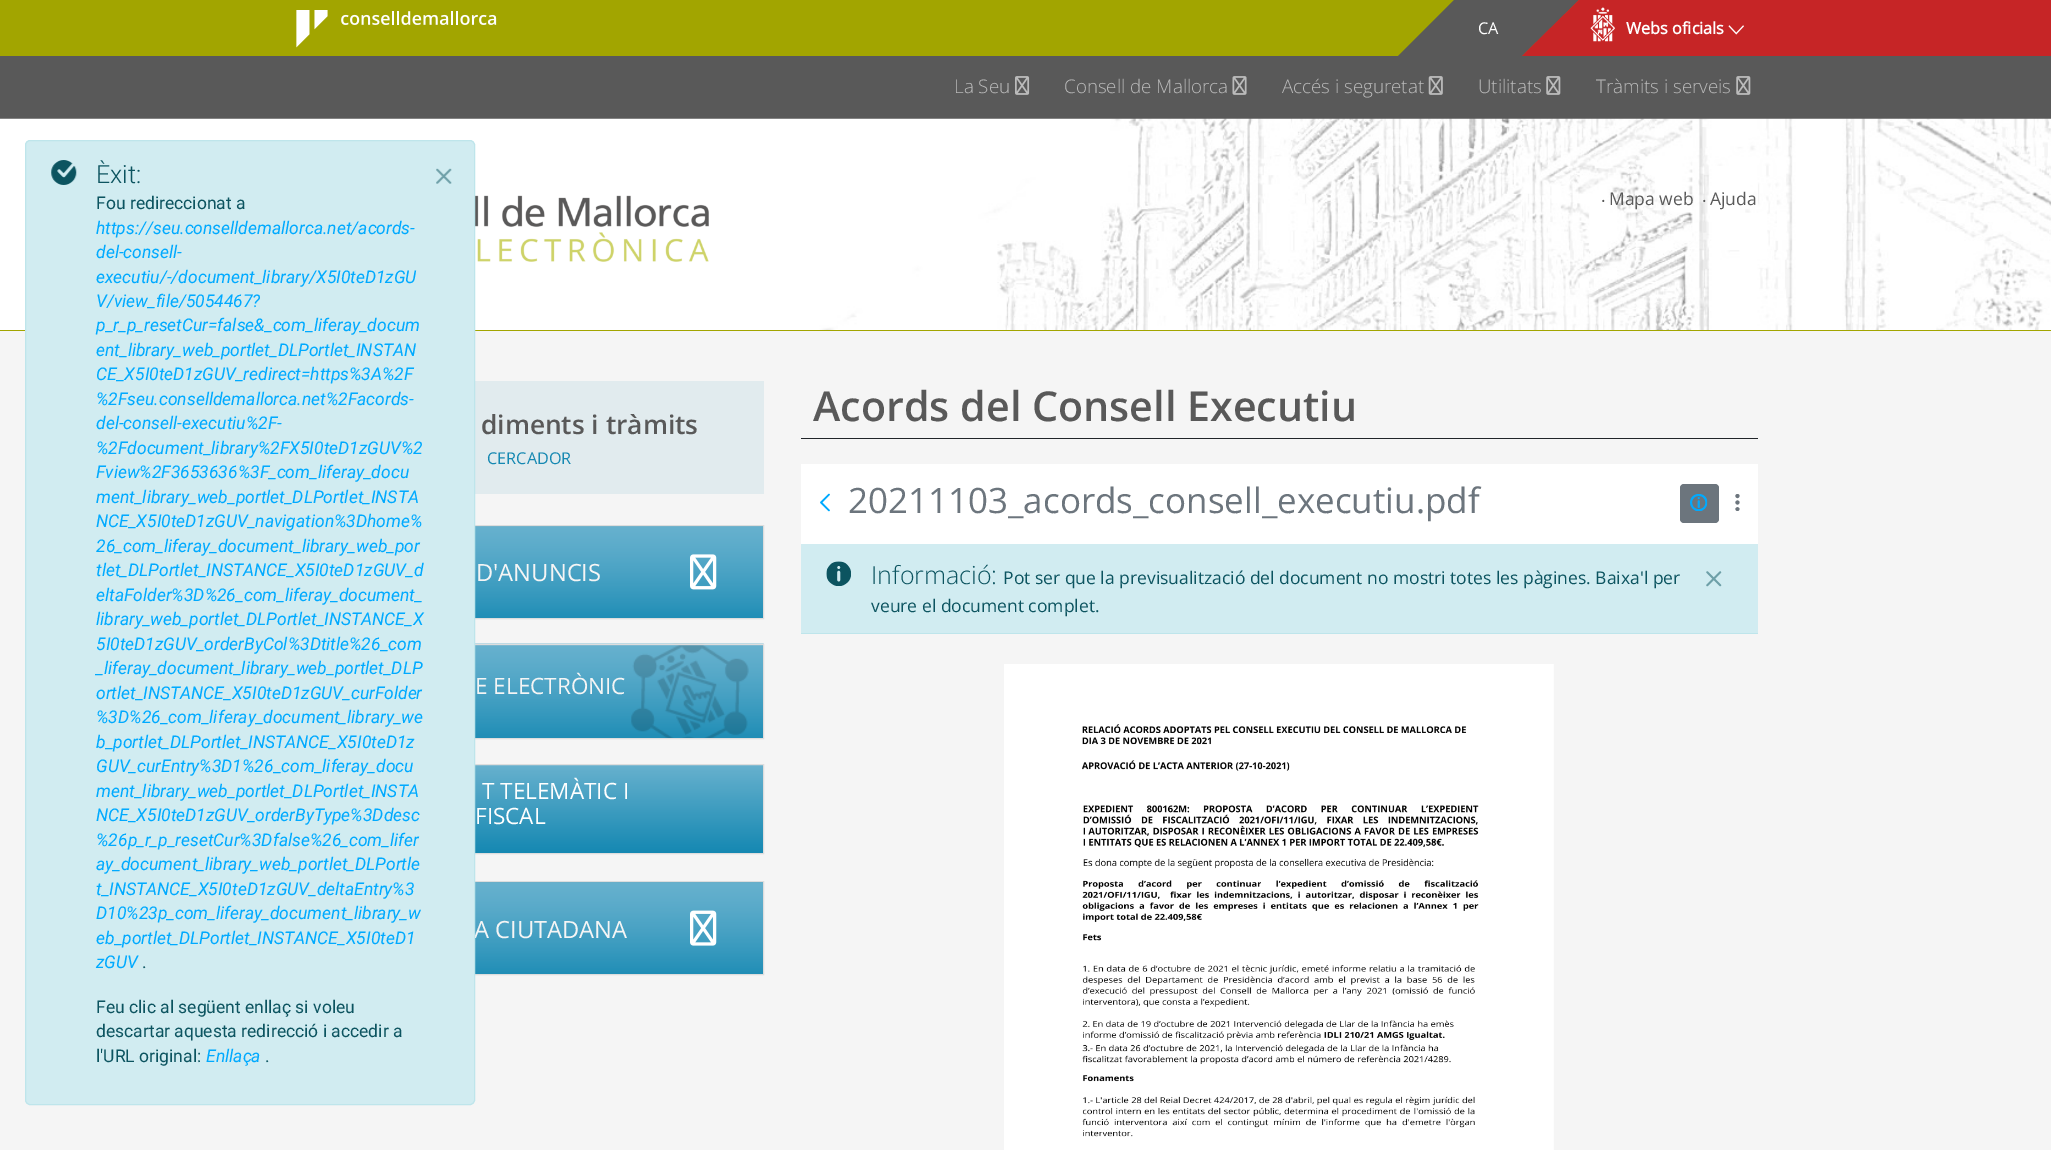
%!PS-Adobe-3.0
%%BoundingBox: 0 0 2051 1150
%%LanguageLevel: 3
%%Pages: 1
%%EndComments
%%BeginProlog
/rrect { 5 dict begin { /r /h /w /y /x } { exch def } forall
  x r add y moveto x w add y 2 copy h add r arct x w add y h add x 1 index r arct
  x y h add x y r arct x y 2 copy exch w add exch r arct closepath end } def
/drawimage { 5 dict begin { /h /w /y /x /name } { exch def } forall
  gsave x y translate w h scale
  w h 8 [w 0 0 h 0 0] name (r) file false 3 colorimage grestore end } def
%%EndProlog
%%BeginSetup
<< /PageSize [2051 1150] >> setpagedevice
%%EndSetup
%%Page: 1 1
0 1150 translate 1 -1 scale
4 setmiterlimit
0.961 setgray
0 0 2051 1150 rectfill
0.635 0.647 0 setrgbcolor
0 0 1579 56 rectfill
(images/3.raw) 296 10 201 38 drawimage
0.349 setgray
newpath 1454 0 moveto 1579 0 lineto 1522 56 lineto 1398 56 lineto closepath fill
0.776 0.145 0.149 setrgbcolor
1760 0 291 56 rectfill
newpath 1579 0 moveto 1816 0 lineto 1760 56 lineto 1522 56 lineto closepath fill
(images/4.raw) 1590 7 25 35 drawimage
(images/5.raw) 1728 25 16 10 drawimage
0.349 setgray
0 56 2051 63 rectfill
(images/6.raw) 1015 76 15 19 drawimage
(images/7.raw) 1232 76 15 19 drawimage
(images/8.raw) 1428 76 15 19 drawimage
(images/9.raw) 1546 76 15 19 drawimage
(images/9.raw) 1736 76 15 19 drawimage
(images/10.raw) 0 118 2051 212 drawimage
0.635 0.647 0 setrgbcolor
0 330 2051 1 rectfill
(images/11.raw) 475 175 234 87 drawimage
0.882 0.922 0.933 setrgbcolor
475 381 289 113 rectfill
(images/12.raw) 475 526 288 92 drawimage
0.867 setgray
295.5 525.5 468 93 rectstroke
(images/13.raw) 690 554 27 36 drawimage
(images/14.raw) 475 643 289 95 drawimage
295.5 644.5 468 94 rectstroke
gsave newpath 475 765 moveto 763 765 lineto 763 853 lineto 475 853 lineto closepath clip newpath
<< /ShadingType 2 /ColorSpace /DeviceRGB /Coords [529 765 529 853] /Extend [true true] /Function << /FunctionType 2 /Domain [0 1] /C0 [0.404 0.694 0.808] /C1 [0.082 0.533 0.698] /N 1 >> >> shfill grestore
295.5 764.5 468 89 rectstroke
(images/15.raw) 475 882 288 92 drawimage
295.5 881.5 468 93 rectstroke
(images/16.raw) 690 910 27 36 drawimage
0.129 0.145 0.161 setrgbcolor
801 438 957 1 rectfill
1 setgray
801 464 957 80 rectfill
(images/17.raw) 820 493 10 19 drawimage
0.424 0.459 0.49 setrgbcolor
1680 484 39 39 4 rrect fill
(images/18.raw) 1690 494 18 17 drawimage
(images/19.raw) 1735 494 5 17 drawimage
0.82 0.925 0.945 setrgbcolor
801 544 957 89 rectfill
0.745 0.898 0.922 setrgbcolor
801 633 957 1 rectfill
(images/20.raw) 826 561 25 25 drawimage
(images/21.raw) 1706 571 16 16 drawimage
(images/22.raw) 1004 664 550 486 drawimage
/OpenSans-Regular [16.25 0 0 -16.25 0 0] selectfont
1 setgray
1478 34 moveto (CA) show
/OpenSans-Bold [16.25 0 0 -16.25 0 0] selectfont
1626 34 moveto (Webs oficials) show
/OpenSans-Light [18.75 0 0 -18.75 0 0] selectfont
0.733 setgray
954 93 moveto (La Seu) show
1064 93 moveto (Consell de Mallorca) show
1282 93 moveto (Accés i seguretat) show
1478 93 moveto (Utilitats) show
1596 93 moveto (Tràmits i serveis) show
/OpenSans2-Regular [17.5 0 0 -17.5 0 0] selectfont
0.349 setgray
1601 207 moveto (·) show
1609 205 moveto (Mapa web) show
1702 207 moveto (·) show
1710 205 moveto (Ajuda) show
/OpenSans-SemiBold [26.25 0 0 -26.25 0 0] selectfont
481 434 moveto (diments i tràmits) show
/OpenSans2-Regular [16.25 0 0 -16.25 0 0] selectfont
0.082 0.533 0.698 setrgbcolor
487 464 moveto (CERCADOR) show
/OpenSans2-Regular [23.75 0 0 -23.75 0 0] selectfont
0.961 setgray
476 581 moveto (D'ANUNCIS) show
/OpenSans2-Regular [22.5 0 0 -22.5 0 0] selectfont
475 694 moveto (E ELECTRÒNIC) show
1 setgray
482 799 moveto (T TELEMÀTIC I) show
475 824 moveto (FISCAL) show
/OpenSans2-Regular [23.75 0 0 -23.75 0 0] selectfont
0.961 setgray
474 938 moveto (A CIUTADANA) show
0.82 0.925 0.945 setrgbcolor
25.5 140.5 449 964 4.5 rrect gsave fill grestore
0.745 0.898 0.922 setrgbcolor
stroke
(images/2.raw) 436 168 16 16 drawimage
/Roboto-Regular [17.5 0 0 -17.5 0 0] selectfont
0.047 0.329 0.376 setrgbcolor
265 1062 moveto (.) show
/Roboto-Italic [17.5 0 0 -17.5 0 0] selectfont
0 0.667 1 setrgbcolor
206 1062 moveto (Enllaça) show
/Roboto-Regular [17.5 0 0 -17.5 0 0] selectfont
0.047 0.329 0.376 setrgbcolor
96 1062 moveto (l'URL original:) show
96 1037 moveto (descartar aquesta redirecció i accedir a) show
96 1013 moveto (Feu clic al següent enllaç si voleu) show
142 968 moveto (.) show
/Roboto-Italic [17.5 0 0 -17.5 0 0] selectfont
0 0.667 1 setrgbcolor
96 968 moveto (zGUV) show
96 944 moveto (eb_portlet_DLPortlet_INSTANCE_X5I0teD1) show
96 919 moveto (D10%23p_com_liferay_document_library_w) show
96 895 moveto (t_INSTANCE_X5I0teD1zGUV_deltaEntry%3) show
96 870 moveto (ay_document_library_web_portlet_DLPortle) show
96 846 moveto (%26p_r_p_resetCur%3Dfalse%26_com_lifer) show
96 821 moveto (NCE_X5I0teD1zGUV_orderByType%3Ddesc) show
96 797 moveto (ment_library_web_portlet_DLPortlet_INSTA) show
96 772 moveto (GUV_curEntry%3D1%26_com_liferay_docu) show
96 748 moveto (b_portlet_DLPortlet_INSTANCE_X5I0teD1z) show
96 723 moveto (%3D%26_com_liferay_document_library_we) show
96 699 moveto (ortlet_INSTANCE_X5I0teD1zGUV_curFolder) show
96 674 moveto (_liferay_document_library_web_portlet_DLP) show
96 650 moveto (5I0teD1zGUV_orderByCol%3Dtitle%26_com) show
96 625 moveto (library_web_portlet_DLPortlet_INSTANCE_X) show
96 601 moveto (eltaFolder%3D%26_com_liferay_document_) show
96 576 moveto (tlet_DLPortlet_INSTANCE_X5I0teD1zGUV_d) show
96 552 moveto (26_com_liferay_document_library_web_por) show
96 527 moveto (NCE_X5I0teD1zGUV_navigation%3Dhome%) show
96 503 moveto (ment_library_web_portlet_DLPortlet_INSTA) show
96 478 moveto (Fview%2F3653636%3F_com_liferay_docu) show
96 454 moveto (%2Fdocument_library%2FX5I0teD1zGUV%2) show
96 429 moveto (del-consell-executiu%2F-) show
96 405 moveto (%2Fseu.conselldemallorca.net%2Facords-) show
96 380 moveto (CE_X5I0teD1zGUV_redirect=https%3A%2F) show
96 356 moveto (ent_library_web_portlet_DLPortlet_INSTAN) show
96 331 moveto (p_r_p_resetCur=false&_com_liferay_docum) show
96 307 moveto (V/view_file/5054467?) show
96 283 moveto (executiu/-/document_library/X5I0teD1zGU) show
96 258 moveto (del-consell-) show
96 234 moveto (https://seu.conselldemallorca.net/acords-) show
/Roboto-Regular [17.5 0 0 -17.5 0 0] selectfont
0.047 0.329 0.376 setrgbcolor
96 209 moveto (Fou redireccionat a) show
/Roboto-Light [25 0 0 -25 0 0] selectfont
96 183 moveto (Èxit:) show
(images/1.raw) 51 160 26 25 drawimage
/OpenSans-SemiBold [41.25 0 0 -41.25 0 0] selectfont
0.349 setgray
813 421 moveto (Acords del Consell Executiu) show
/OpenSans2-Regular [35 0 0 -35 0 0] selectfont
0.424 0.459 0.49 setrgbcolor
848 513 moveto (20211103_acords_consell_executiu.pdf) show
/OpenSans-Light [25 0 0 -25 0 0] selectfont
0.047 0.329 0.376 setrgbcolor
871 584 moveto (Informació:) show
/OpenSans2-Regular [17.5 0 0 -17.5 0 0] selectfont
1003 584 moveto (Pot ser que la previsualització del document no mostri totes les pàgines. Baixa'l per) show
871 612 moveto (veure el document complet.) show
showpage
%%EOF
